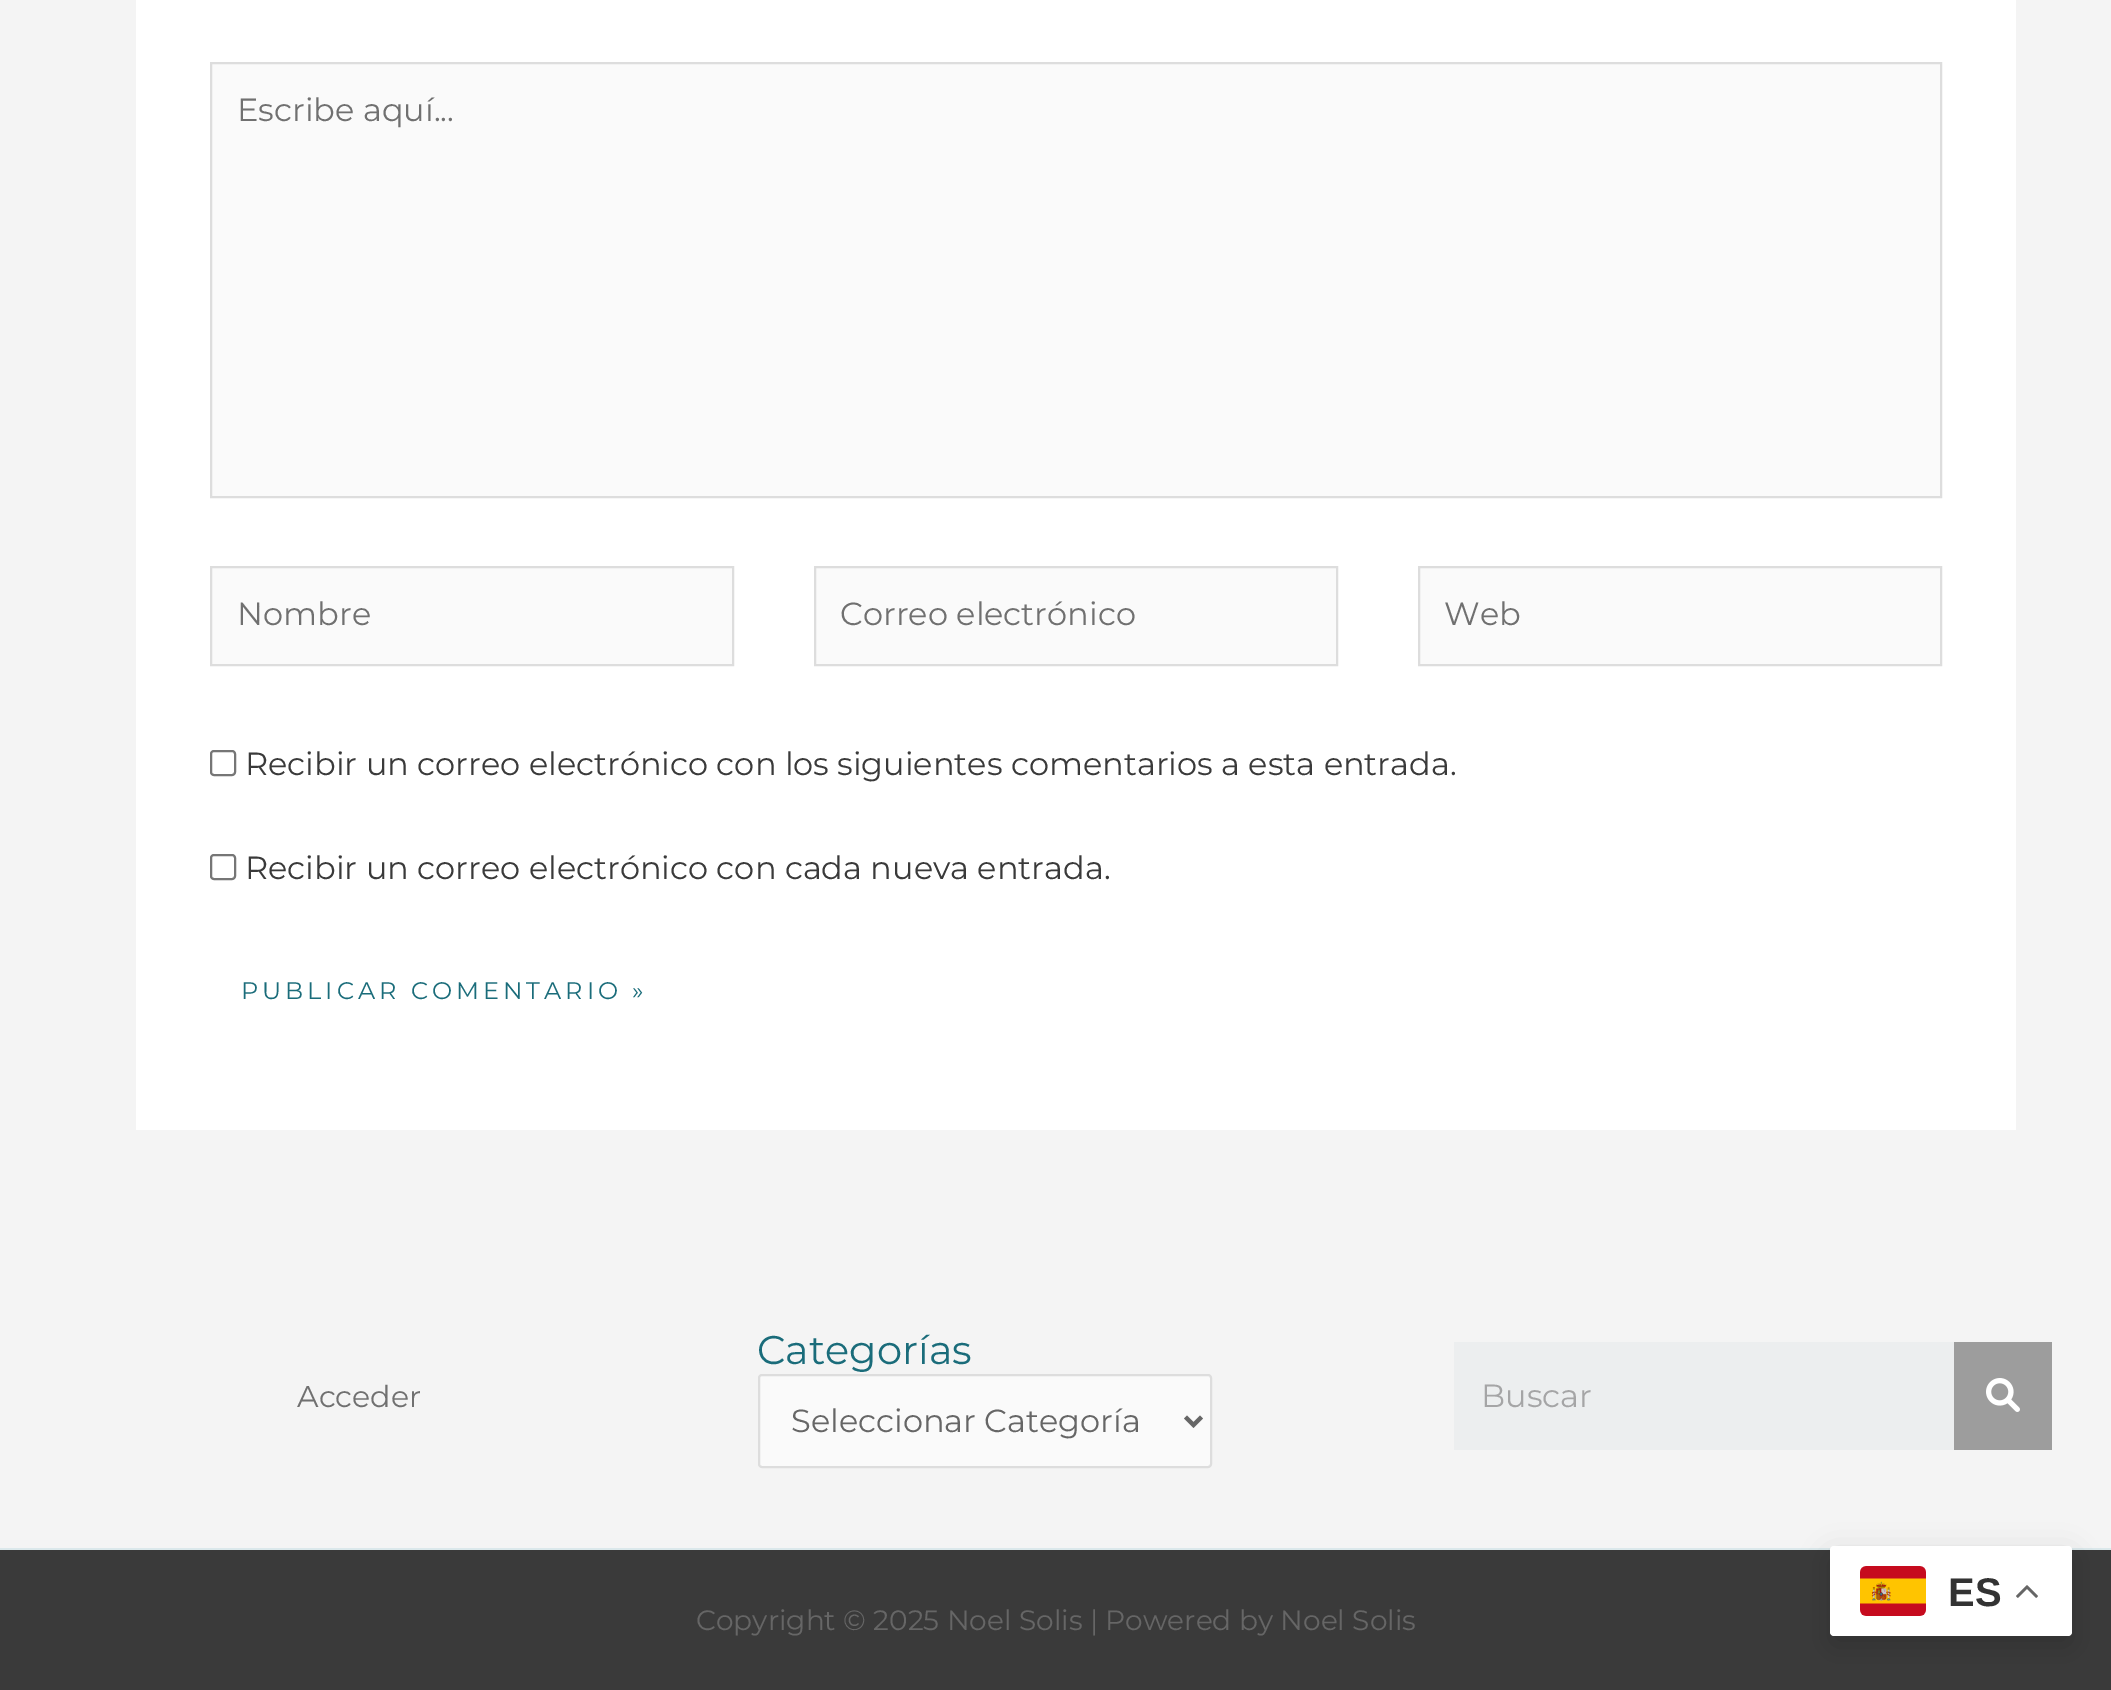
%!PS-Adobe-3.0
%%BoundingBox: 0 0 2111 1690
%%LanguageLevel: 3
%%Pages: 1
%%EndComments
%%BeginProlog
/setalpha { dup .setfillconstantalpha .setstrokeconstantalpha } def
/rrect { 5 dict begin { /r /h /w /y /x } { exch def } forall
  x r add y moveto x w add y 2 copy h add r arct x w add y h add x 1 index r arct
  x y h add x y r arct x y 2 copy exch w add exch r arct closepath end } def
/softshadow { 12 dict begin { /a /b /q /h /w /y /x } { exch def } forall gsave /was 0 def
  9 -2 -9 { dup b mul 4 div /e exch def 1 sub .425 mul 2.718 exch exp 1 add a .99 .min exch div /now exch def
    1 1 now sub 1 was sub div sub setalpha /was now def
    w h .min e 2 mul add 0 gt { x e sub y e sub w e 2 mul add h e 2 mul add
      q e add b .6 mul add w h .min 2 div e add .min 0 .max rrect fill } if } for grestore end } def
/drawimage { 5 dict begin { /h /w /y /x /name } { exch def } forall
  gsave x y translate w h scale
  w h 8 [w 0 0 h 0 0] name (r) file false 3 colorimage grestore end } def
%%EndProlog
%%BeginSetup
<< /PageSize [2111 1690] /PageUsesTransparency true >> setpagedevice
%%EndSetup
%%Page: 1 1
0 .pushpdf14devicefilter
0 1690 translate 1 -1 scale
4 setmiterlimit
0.957 setgray
0 0 2111 1690 rectfill
1 setgray
136 0 1880 1130 rectfill
0.98 setgray
newpath 211 63 moveto 1941 63 lineto 1941 497 lineto 211 497 lineto closepath gsave fill grestore
0.867 setgray
2 setlinewidth
stroke
0.98 setgray
newpath 211 567 moveto 733 567 lineto 733 665 lineto 211 665 lineto closepath gsave fill grestore
0.867 setgray
stroke
0.98 setgray
newpath 815 567 moveto 1337 567 lineto 1337 665 lineto 815 665 lineto closepath gsave fill grestore
0.867 setgray
stroke
0.98 setgray
newpath 1419 567 moveto 1941 567 lineto 1941 665 lineto 1419 665 lineto closepath gsave fill grestore
0.867 setgray
stroke
0.463 setgray
211 751 24 24 3 rrect stroke
211 855 24 24 3 rrect stroke
0.98 setgray
759 1375 452 92 3 rrect gsave fill grestore
0.867 setgray
stroke
0.4 setgray
4 setlinewidth
newpath 1185.5 1417 moveto 1193.5 1425 lineto 1201.5 1417 lineto stroke
0.925 0.933 0.937 setrgbcolor
1454 1342 500 108 rectfill
0.616 setgray
1954 1342 98 108 rectfill
(images/1.raw) 1986 1378 34 34 drawimage
0.227 setgray
0 1550 2111 140 rectfill
0.859 0.91 0.922 setrgbcolor
0 1548 2111 2 rectfill
0 setgray
1830 1556 242 90 4 15 0.15 softshadow
1 setgray
1830 1546 242 90 4 rrect fill
(images/2.raw) 1860 1566 66 50 drawimage
(images/3.raw) 2016 1585 22 13 drawimage
/Montserrat-Regular [32 0 0 -32 0 0] selectfont
0.439 setgray
237 121 moveto (Escribe aquí...) show
237 625 moveto (Nombre) show
840 625 moveto (Correo electrónico) show
1444 625 moveto (Web) show
0.227 setgray
245 775 moveto (Recibir un correo electrónico con los siguientes comentarios a esta entrada.) show
245 879 moveto (Recibir un correo electrónico con cada nueva entrada.) show
/Montserrat-Regular [24 0 0 -24 0 0] selectfont
0.102 0.424 0.478 setrgbcolor
241 999 moveto 4 0 (PUBLICAR COMENTARIO ») ashow
/Montserrat-Regular [30 0 0 -30 0 0] selectfont
0.439 setgray
297 1407 moveto (Acceder) show
/Montserrat-Regular [40 0 0 -40 0 0] selectfont
0.102 0.424 0.478 setrgbcolor
757 1364 moveto (Categorías) show
/Montserrat-Regular [32 0 0 -32 0 0] selectfont
0.4 setgray
791 1432 moveto (Seleccionar Categoría) show
0.647 0.647 0.651 setrgbcolor
1481 1407 moveto (Buscar) show
/Montserrat-Regular [28 0 0 -28 0 0] selectfont
0.4 setgray
696 1630 moveto (Copyright © 2025 Noel Solis | Powered by Noel Solis) show
/LiberationSans-Bold [40 0 0 -40 0 0] selectfont
0.2 setgray
1948 1606 moveto (ES) show
.poppdf14devicefilter showpage
%%EOF
